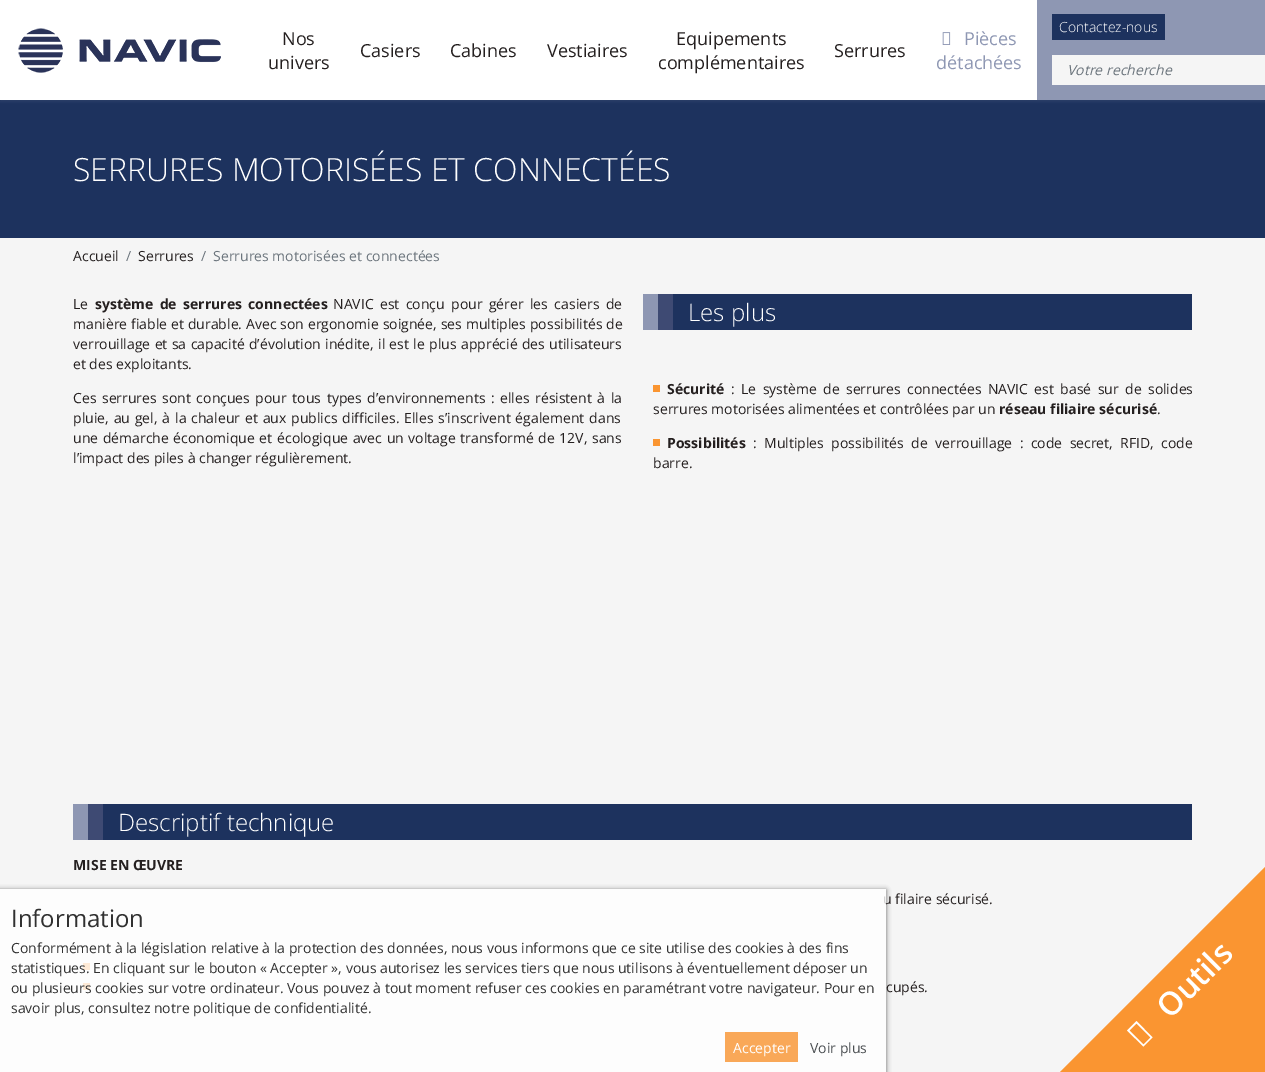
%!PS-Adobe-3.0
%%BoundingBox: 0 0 1265 1072
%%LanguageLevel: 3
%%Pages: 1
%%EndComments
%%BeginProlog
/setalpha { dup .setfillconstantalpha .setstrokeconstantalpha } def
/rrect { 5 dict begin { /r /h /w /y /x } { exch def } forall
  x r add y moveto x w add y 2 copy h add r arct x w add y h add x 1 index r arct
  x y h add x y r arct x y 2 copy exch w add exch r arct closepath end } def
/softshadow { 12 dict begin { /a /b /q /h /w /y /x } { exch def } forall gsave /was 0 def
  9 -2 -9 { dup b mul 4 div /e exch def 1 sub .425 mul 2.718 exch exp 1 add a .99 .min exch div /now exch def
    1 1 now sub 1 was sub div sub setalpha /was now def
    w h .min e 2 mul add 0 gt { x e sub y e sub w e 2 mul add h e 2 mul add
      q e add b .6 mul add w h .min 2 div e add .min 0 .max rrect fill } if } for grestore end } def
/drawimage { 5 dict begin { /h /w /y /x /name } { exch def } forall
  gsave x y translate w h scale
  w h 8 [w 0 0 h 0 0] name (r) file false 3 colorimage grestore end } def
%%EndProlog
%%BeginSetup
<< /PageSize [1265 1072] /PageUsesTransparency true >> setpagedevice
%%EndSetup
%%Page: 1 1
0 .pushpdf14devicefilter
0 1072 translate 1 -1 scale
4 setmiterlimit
0.961 setgray
0 0 1265 1072 rectfill
0.114 0.196 0.369 setrgbcolor
0 100 1265 138 rectfill
0.553 0.624 0.675 setrgbcolor
0 2 1265 100 0 1.5 0.12 softshadow
1 setgray
0 0 1037 100 rectfill
(images/1.raw) 18 28 203 45 drawimage
(images/2.raw) 942 32 9 13 drawimage
0.557 0.592 0.702 setrgbcolor
1037 0 228 100 rectfill
0.114 0.196 0.369 setrgbcolor
1052 14 113 26 rectfill
0.961 setgray
1052 55 213 30 rectfill
0.114 0.196 0.369 setrgbcolor
673 294 519 36 rectfill
0.243 0.29 0.451 setrgbcolor
658 294 15 36 rectfill
0.557 0.592 0.702 setrgbcolor
643 294 15 36 rectfill
0.98 0.584 0.192 setrgbcolor
653 385 7 7 rectfill
653 439 7 7 rectfill
0.114 0.196 0.369 setrgbcolor
103 804 1089 36 rectfill
0.243 0.29 0.451 setrgbcolor
88 804 15 36 rectfill
0.557 0.592 0.702 setrgbcolor
73 804 15 36 rectfill
0.98 0.584 0.192 setrgbcolor
83 963 7 7 rectfill
83 983 7 7 rectfill
gsave
newpath 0 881 moveto 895 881 lineto 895 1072 lineto 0 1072 lineto closepath 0 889 moveto 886 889 lineto 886 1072 lineto 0 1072 lineto closepath eoclip newpath
0 setgray
-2 890 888 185 0 2.5 0.56 softshadow
grestore
newpath 1053 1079 moveto 1265 867 lineto 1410 1012 lineto 1198 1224 lineto closepath fill
1 setgray
newpath 1143.5 1046.5 moveto 1127 1030.5 lineto 1136.5 1021 lineto 1152.5 1037.5 lineto closepath 1143.5 1044.5 moveto 1150.5 1037.5 lineto 1136.5 1023.5 lineto 1129.5 1030.5 lineto closepath fill
/OpenSans-Regular [18 0 0 -18 0 0] selectfont
0.141 0.122 0.122 setrgbcolor
282 45 moveto (Nos) show
268 69 moveto (univers) show
360 57 moveto (Casiers) show
450 57 moveto (Cabines) show
547 57 moveto (Vestiaires) show
676 45 moveto (Equipements) show
658 69 moveto (complémentaires) show
834 57 moveto (Serrures) show
0.557 0.592 0.702 setrgbcolor
964 45 moveto (Pièces) show
936 69 moveto (détachées) show
/OpenSans-Light [14 0 0 -14 0 0] selectfont
1 setgray
1059 32 moveto (Contactez-nous) show
/OpenSans-Italic [14 0 0 -14 0 0] selectfont
0.424 0.459 0.49 setrgbcolor
1067 75 moveto (Votre recherche) show
/OpenSans-Light [32 0 0 -32 0 0] selectfont
1 setgray
73 181 moveto (SERRURES MOTORISÉES ET CONNECTÉES) show
/OpenSans-Regular [14 0 0 -14 0 0] selectfont
0.141 0.122 0.122 setrgbcolor
73 261 moveto (Accueil) show
0.424 0.459 0.49 setrgbcolor
126 261 moveto (/) show
0.141 0.122 0.122 setrgbcolor
138 261 moveto (Serrures) show
0.424 0.459 0.49 setrgbcolor
201 261 moveto (/) show
213 261 moveto (Serrures motorisées et connectées) show
0.141 0.122 0.122 setrgbcolor
73 309 moveto (Le) show
/OpenSans-Bold [14 0 0 -14 0 0] selectfont
95 309 moveto 2.75 0 32 (système de serrures connectées) widthshow
/OpenSans-Regular [14 0 0 -14 0 0] selectfont
333 309 moveto 2.75 0 32 (NAVIC est conçu pour gérer les casiers de) widthshow
73 329 moveto 0.25 0 32 (manière fiable et durable. Avec son ergonomie soignée, ses multiples possibilités de) widthshow
73 349 moveto 0.75 0 32 (verrouillage et sa capacité d’évolution inédite, il est le plus apprécié des utilisateurs) widthshow
73 369 moveto (et des exploitants.) show
73 403 moveto 1.9 0 32 (Ces serrures sont conçues pour tous types d’environnements : elles résistent à la) widthshow
73 423 moveto 1.25 0 32 (pluie, au gel, à la chaleur et aux publics difficiles. Elles s’inscrivent également dans) widthshow
73 443 moveto 1 0 32 (une démarche économique et écologique avec un voltage transformé de 12V, sans) widthshow
73 463 moveto (l’impact des piles à changer régulièrement.) show
/OpenSans-Light [24 0 0 -24 0 0] selectfont
1 setgray
688 321 moveto (Les plus) show
/OpenSans-Bold [14 0 0 -14 0 0] selectfont
0.141 0.122 0.122 setrgbcolor
667 394 moveto (Sécurité) show
/OpenSans-Regular [14 0 0 -14 0 0] selectfont
731 394 moveto 2.75 0 32 (: Le système de serrures connectées NAVIC est basé sur de solides) widthshow
653 414 moveto (serrures motorisées alimentées et contrôlées par un) show
/OpenSans-Bold [14 0 0 -14 0 0] selectfont
999 414 moveto (réseau filiaire sécurisé) show
/OpenSans-Regular [14 0 0 -14 0 0] selectfont
1157 414 moveto (.) show
/OpenSans-Bold [14 0 0 -14 0 0] selectfont
667 448 moveto (Possibilités) show
/OpenSans-Regular [14 0 0 -14 0 0] selectfont
753 448 moveto 3.75 0 32 (: Multiples possibilités de verrouillage : code secret, RFID, code) widthshow
653 468 moveto (barre.) show
/OpenSans-Light [24 0 0 -24 0 0] selectfont
1 setgray
118 831 moveto (Descriptif technique) show
/OpenSans-Bold [14 0 0 -14 0 0] selectfont
0.141 0.122 0.122 setrgbcolor
73 870 moveto (MISE EN ŒUVRE) show
/OpenSans-Regular [14 0 0 -14 0 0] selectfont
883 904 moveto (u filaire sécurisé.) show
886 992 moveto (cupés.) show
0.8 setalpha
1 setgray
0 889 886 183 rectfill
/OpenSans-Regular [24 0 0 -24 0 0] selectfont
1 setalpha
0.192 setgray
11 927 moveto (Information) show
/OpenSans-Regular [14 0 0 -14 0 0] selectfont
11 953 moveto (Conformément à la législation relative à la protection des données, nous vous informons que ce site utilise des cookies à des fins) show
11 973 moveto (statistiques. En cliquant sur le bouton « Accepter », vous autorisez les services tiers que nous utilisons à éventuellement déposer un) show
11 993 moveto (ou plusieurs cookies sur votre ordinateur. Vous pouvez à tout moment refuser ces cookies en paramétrant votre navigateur. Pour en) show
11 1013 moveto (savoir plus, consultez notre politique de confidentialité.) show
0.976 0.659 0.345 setrgbcolor
725 1032 73 30 rectfill
1 setgray
733 1053 moveto (Accepter) show
0.294 0.31 0.322 setrgbcolor
810 1053 moveto (Voir plus) show
/OpenSans-SemiBold [32 0 0 -32 0 0] selectfont
1 setgray
gsave 1170 1020 translate -45 rotate 0 0 moveto (Outils) show grestore
.poppdf14devicefilter showpage
%%EOF
